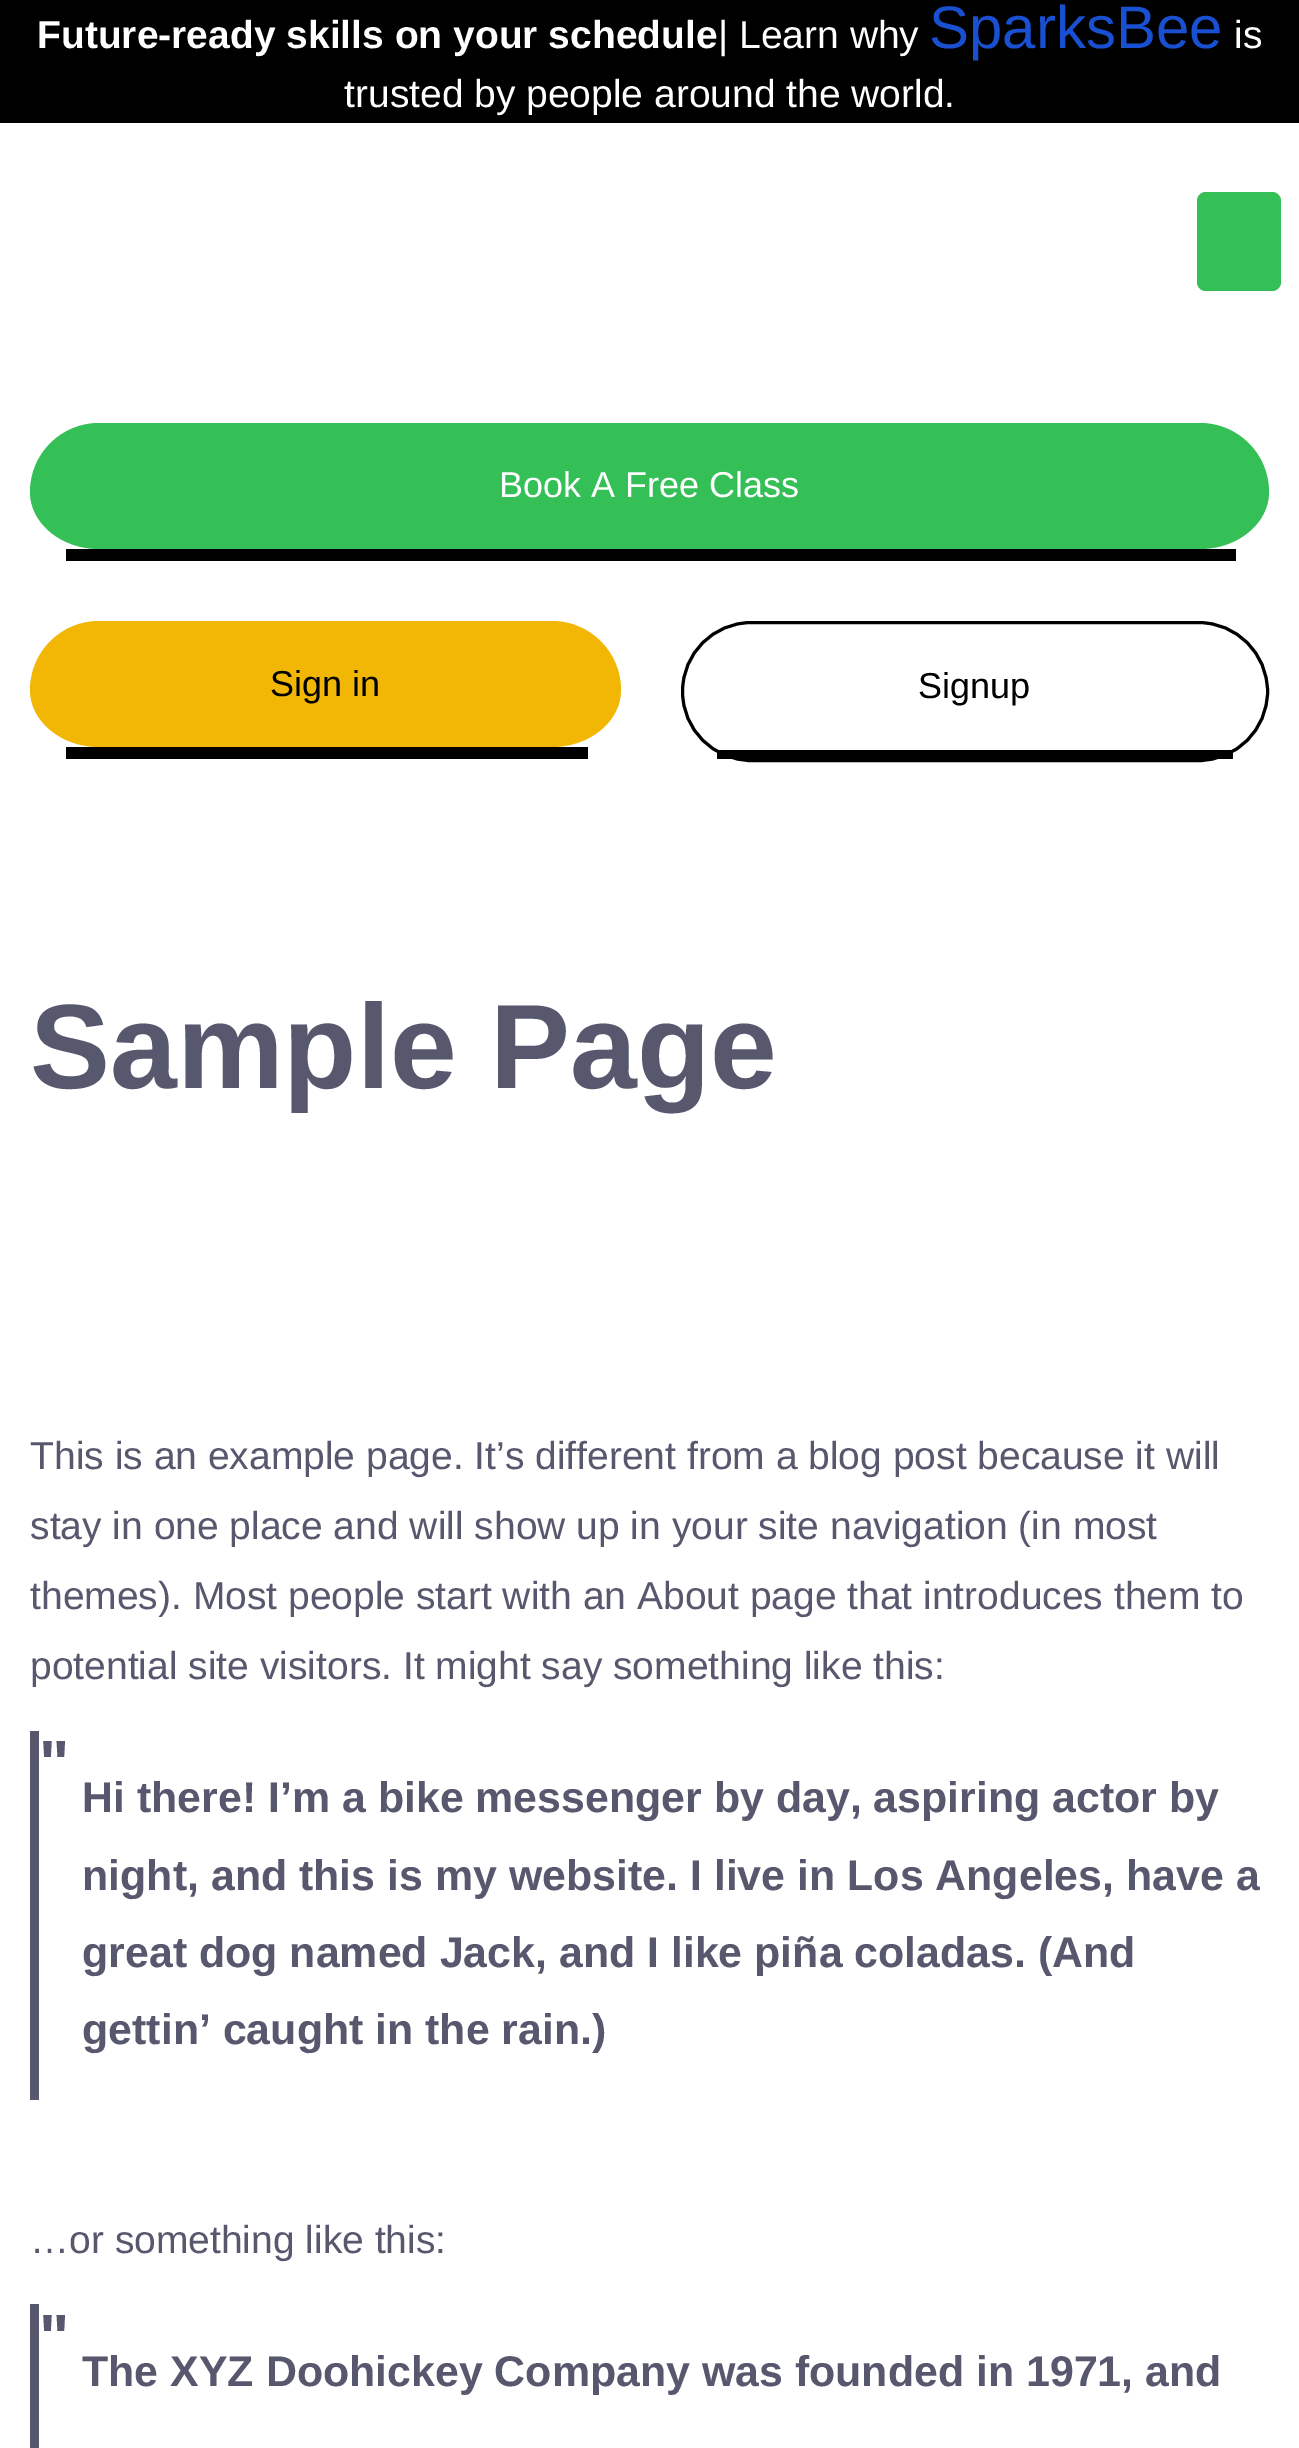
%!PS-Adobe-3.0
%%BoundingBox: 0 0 1299 2448
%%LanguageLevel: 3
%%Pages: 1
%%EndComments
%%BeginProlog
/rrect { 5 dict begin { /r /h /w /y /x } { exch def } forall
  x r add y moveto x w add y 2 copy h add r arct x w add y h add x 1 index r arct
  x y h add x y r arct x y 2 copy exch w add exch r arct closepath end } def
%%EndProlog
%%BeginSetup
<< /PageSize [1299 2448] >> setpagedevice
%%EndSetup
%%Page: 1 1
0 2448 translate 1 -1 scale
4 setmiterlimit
1 setgray
0 0 1299 2448 rectfill
0 setgray
0 0 1299 123 rectfill
0.204 0.749 0.341 setrgbcolor
1197 192 84 99 9 rrect fill
newpath 99 423 moveto 1200 423 lineto 1238 423 1269 454 1269 492 curveto 1269 523 1238 549 1200 549 curveto 99 549 lineto 61 549 30 523 30 492 curveto 30 454 61 423 99 423 curveto closepath fill
0 setgray
66 549 1170 12 rectfill
0.949 0.718 0.02 setrgbcolor
newpath 99 621 moveto 552 621 lineto 590 621 621 652 621 690 curveto 621 721 590 747 552 747 curveto 99 747 lineto 61 747 30 721 30 690 curveto 30 652 61 621 99 621 curveto closepath fill
0 setgray
66 747 522 12 rectfill
3 setlinewidth
682.5 622.5 585 138 69 rrect stroke
717 750 516 9 rectfill
0.341 0.345 0.431 setrgbcolor
30 1731 9 369 rectfill
30 2304 9 144 rectfill
/LiberationSans-Bold [39 0 0 -39 0 0] selectfont
1 setgray
37 48 moveto (Future-ready skills on your schedule) show
/LiberationSans-Regular [39 0 0 -39 0 0] selectfont
718 48 moveto (| Learn why) show
/LiberationSans-Regular [60 0 0 -60 0 0] selectfont
0.098 0.314 0.82 setrgbcolor
929 48 moveto (SparksBee) show
/LiberationSans-Regular [39 0 0 -39 0 0] selectfont
1 setgray
1234 48 moveto (is) show
344 107 moveto (trusted by people around the world.) show
/LiberationSans-Regular [36 0 0 -36 0 0] selectfont
499 497 moveto (Book A Free Class) show
0 setgray
270 696 moveto (Sign in) show
918 698 moveto (Signup) show
/LiberationSans-Bold [120 0 0 -120 0 0] selectfont
0.341 0.345 0.431 setrgbcolor
30 1088 moveto (Sample Page) show
/LiberationSans-Regular [39 0 0 -39 0 0] selectfont
30 1469 moveto (This is an example page. It’s different from a blog post because it will) show
30 1539 moveto (stay in one place and will show up in your site navigation \(in most) show
30 1609 moveto (themes\). Most people start with an About page that introduces them to) show
30 1679 moveto (potential site visitors. It might say something like this:) show
/LiberationSans-Bold [64 0 0 -64 0 0] selectfont
39 1785 moveto (") show
/LiberationSans-Bold [42.9 0 0 -42.9 0 0] selectfont
82 1812 moveto (Hi there! I’m a bike messenger by day, aspiring actor by) show
82 1890 moveto (night, and this is my website. I live in Los Angeles, have a) show
82 1967 moveto (great dog named Jack, and I like piña coladas. \(And) show
82 2044 moveto (gettin’ caught in the rain.\)) show
/LiberationSans-Regular [39 0 0 -39 0 0] selectfont
30 2253 moveto (…or something like this:) show
/LiberationSans-Bold [64 0 0 -64 0 0] selectfont
39 2359 moveto (") show
/LiberationSans-Bold [42.9 0 0 -42.9 0 0] selectfont
82 2386 moveto (The XYZ Doohickey Company was founded in 1971, and) show
showpage
%%EOF
